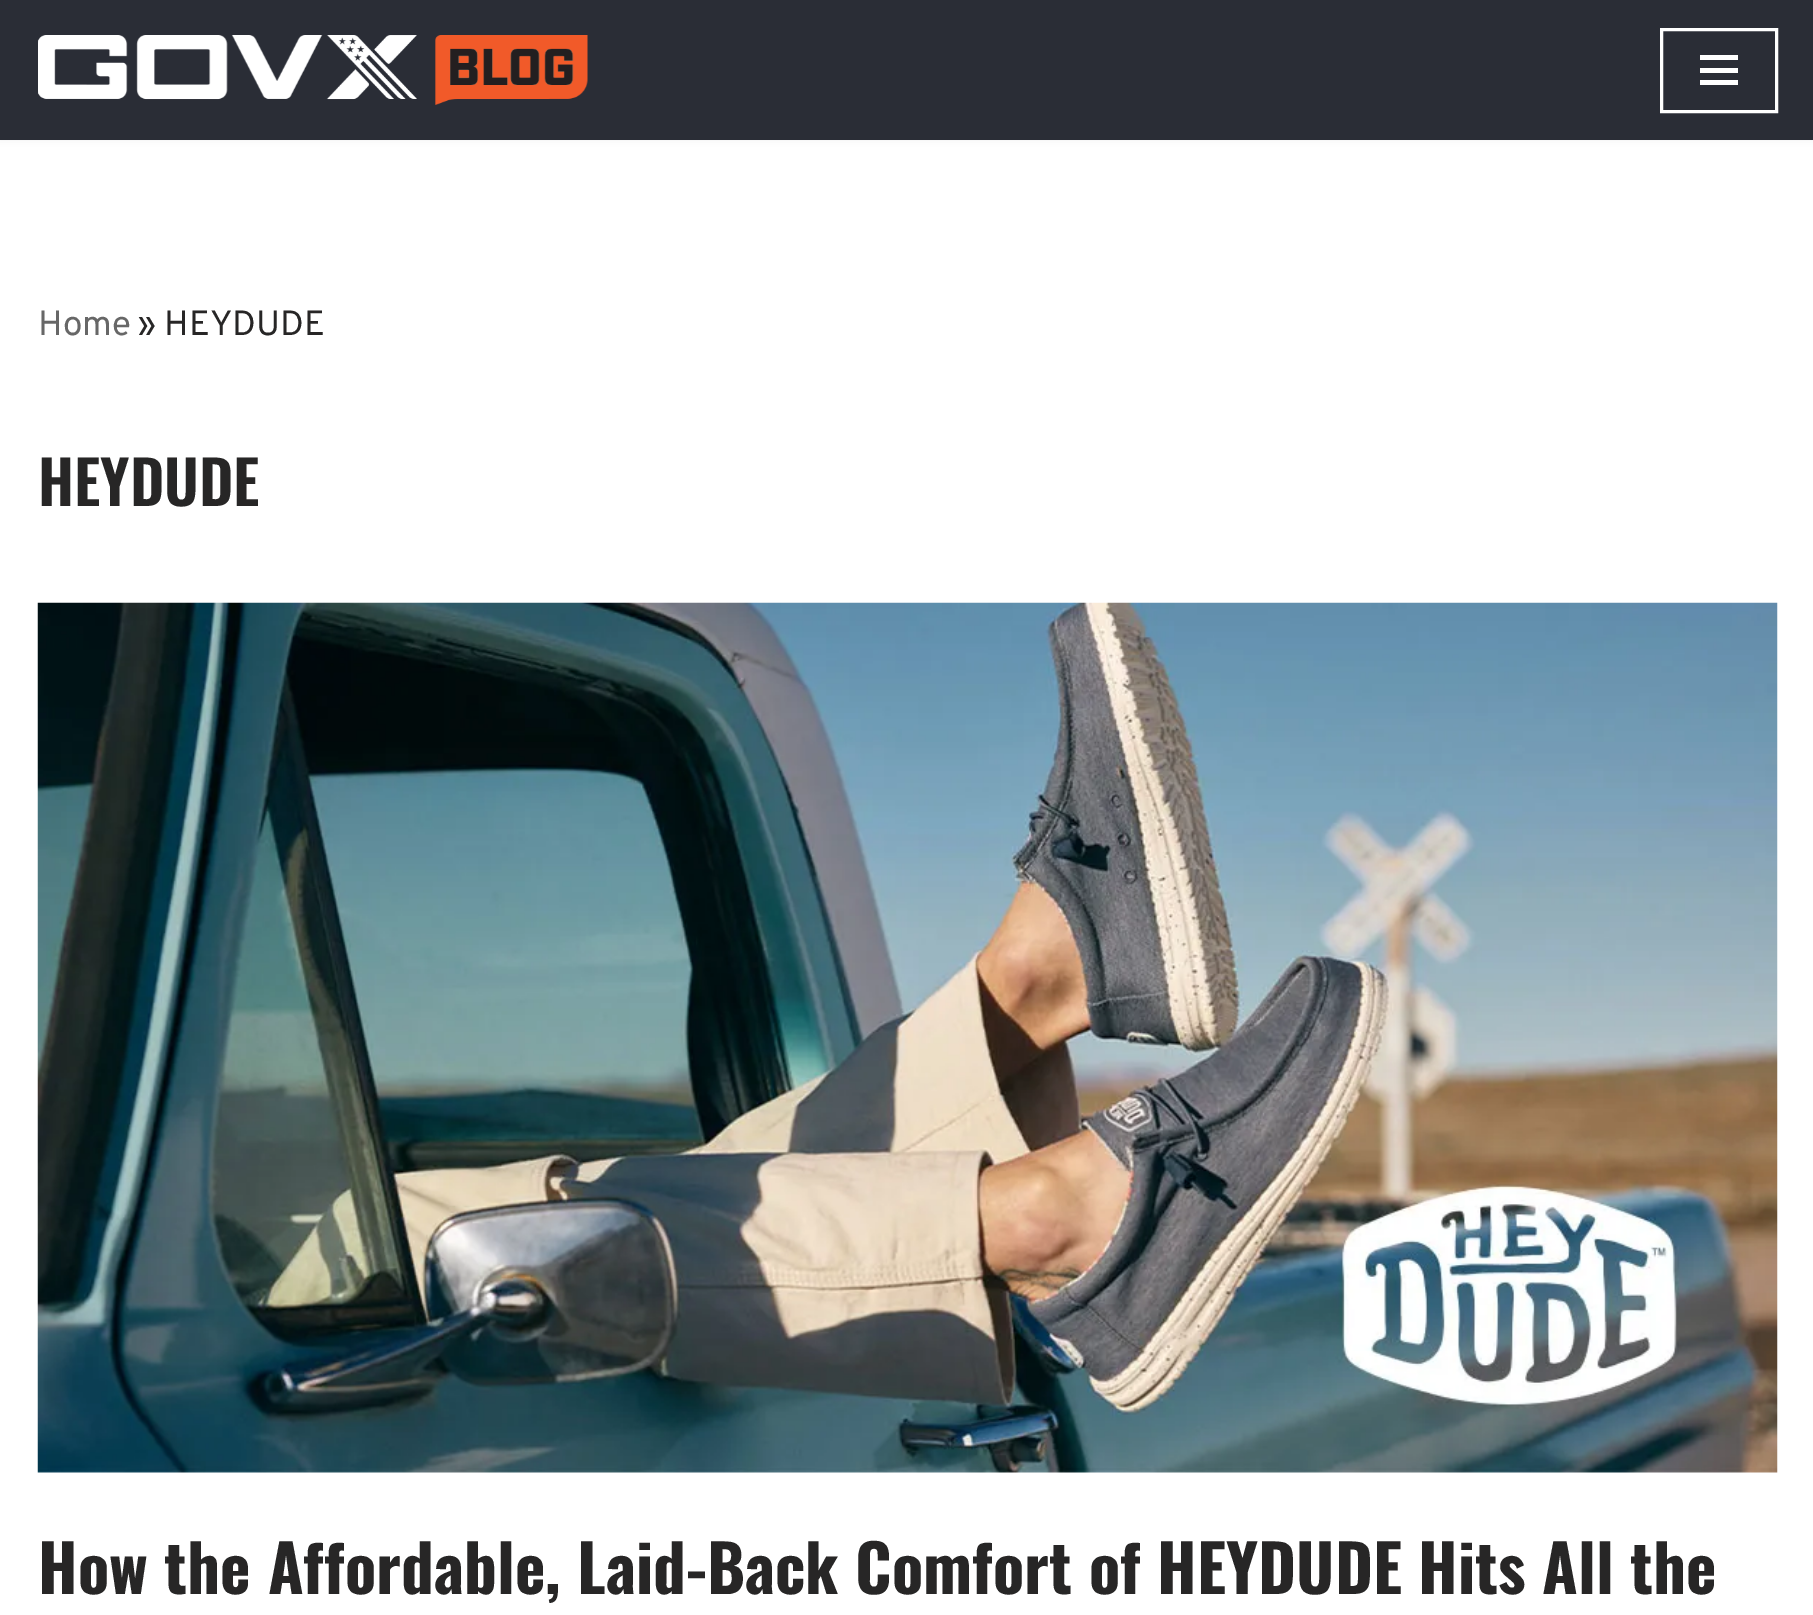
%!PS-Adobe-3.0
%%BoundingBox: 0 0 1813 1615
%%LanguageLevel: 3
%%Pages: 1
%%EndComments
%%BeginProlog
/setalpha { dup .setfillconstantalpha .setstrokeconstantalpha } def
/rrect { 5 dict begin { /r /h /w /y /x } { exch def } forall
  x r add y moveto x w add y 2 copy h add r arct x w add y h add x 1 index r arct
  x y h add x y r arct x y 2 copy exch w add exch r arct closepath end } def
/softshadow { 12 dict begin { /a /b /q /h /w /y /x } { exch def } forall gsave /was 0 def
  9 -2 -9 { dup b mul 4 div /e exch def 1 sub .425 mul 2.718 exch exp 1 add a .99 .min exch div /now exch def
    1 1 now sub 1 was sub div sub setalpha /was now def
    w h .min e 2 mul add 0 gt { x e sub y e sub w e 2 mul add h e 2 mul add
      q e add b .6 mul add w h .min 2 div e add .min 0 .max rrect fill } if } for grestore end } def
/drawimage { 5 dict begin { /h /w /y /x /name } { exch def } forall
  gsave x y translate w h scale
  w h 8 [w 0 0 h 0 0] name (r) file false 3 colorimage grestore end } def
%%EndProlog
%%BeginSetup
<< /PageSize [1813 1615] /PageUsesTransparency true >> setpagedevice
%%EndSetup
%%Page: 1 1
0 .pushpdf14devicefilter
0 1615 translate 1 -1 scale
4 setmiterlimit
1 setgray
0 0 1813 1615 rectfill
0 setgray
0 -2 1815 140 0 4 0.1 softshadow
0.165 0.176 0.212 setrgbcolor
0 0 1813 140 rectfill
(images/1.raw) 38 35 550 70 drawimage
1 setgray
3 setlinewidth
1661.5 29.5 115 82 rectstroke
1700 55 38 5 rectfill
1700 68 38 5 rectfill
1700 80 38 5 rectfill
(images/2.raw) 37 602 1741 871 drawimage
/Overpass-Regular [35 0 0 -35 0 0] selectfont
0.404 setgray
38 335 moveto (Home) show
0.153 0.149 0.149 setrgbcolor
138 335 moveto (» HEYDUDE) show
/Oswald-SemiBold [60 0 0 -60 0 0] selectfont
38 506 moveto (HEYDUDE) show
/Oswald-Bold [65 0 0 -65 0 0] selectfont
38 1594 moveto (How the Affordable, Laid-Back Comfort of HEYDUDE Hits All the) show
.poppdf14devicefilter showpage
%%EOF
